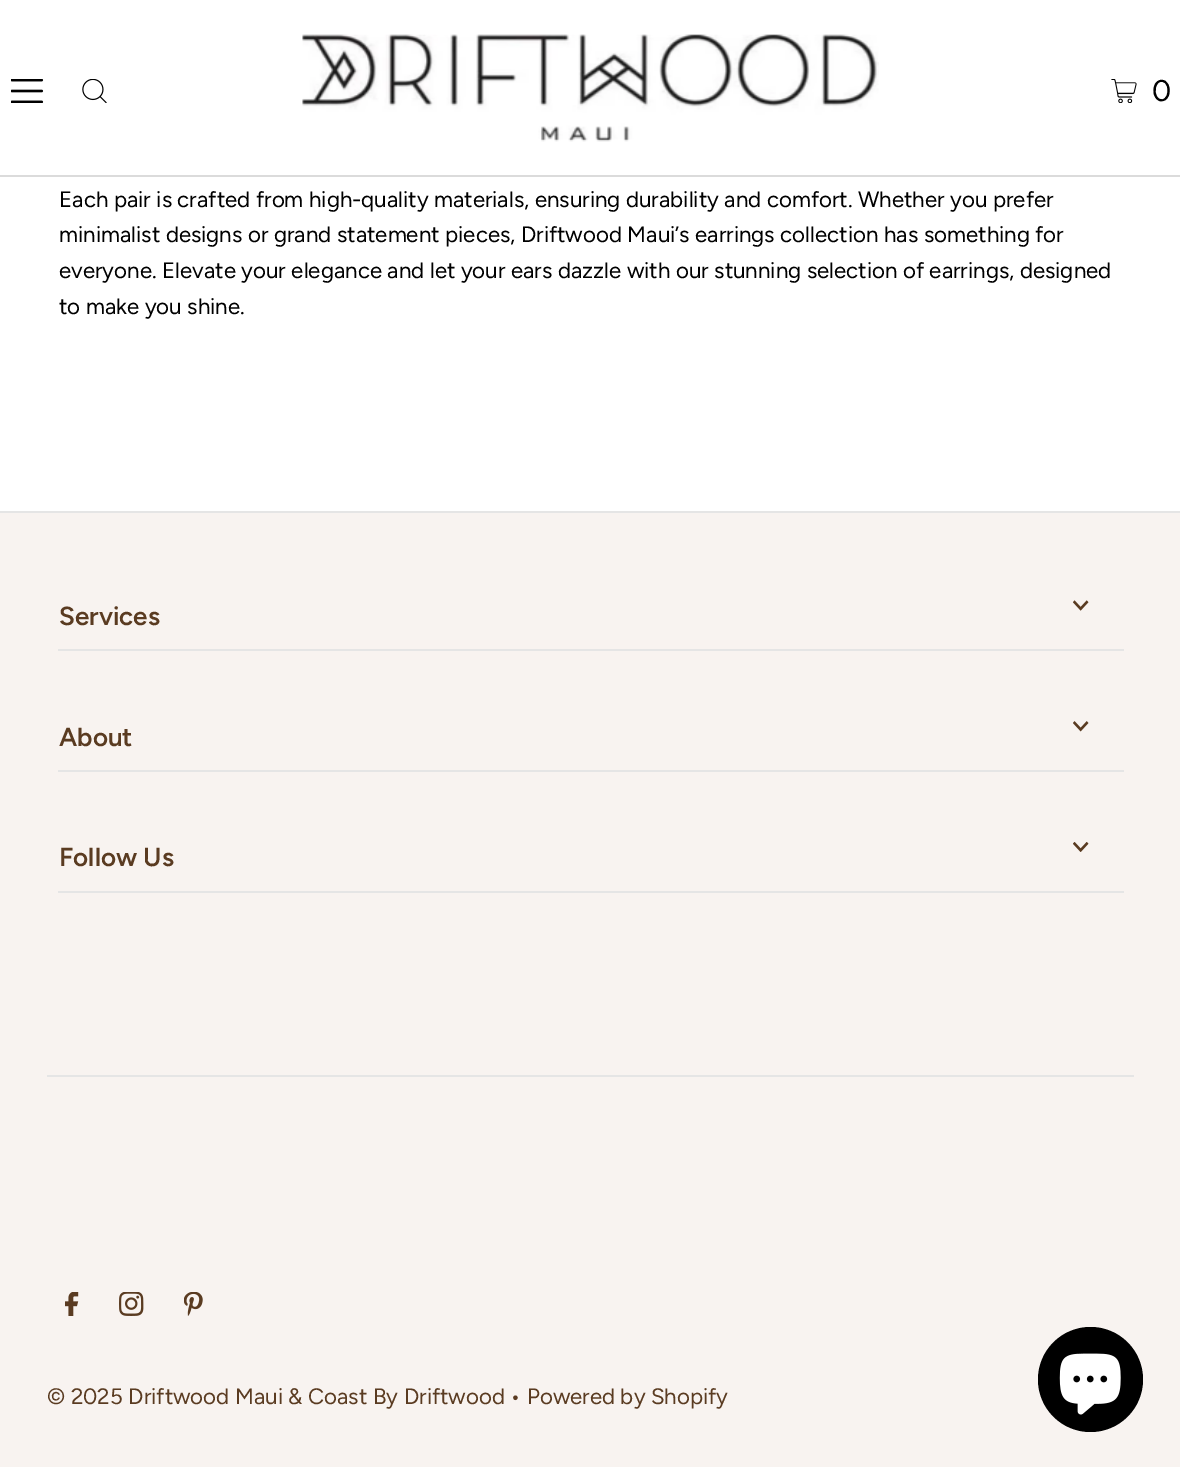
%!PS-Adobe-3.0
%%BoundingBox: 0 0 1180 1467
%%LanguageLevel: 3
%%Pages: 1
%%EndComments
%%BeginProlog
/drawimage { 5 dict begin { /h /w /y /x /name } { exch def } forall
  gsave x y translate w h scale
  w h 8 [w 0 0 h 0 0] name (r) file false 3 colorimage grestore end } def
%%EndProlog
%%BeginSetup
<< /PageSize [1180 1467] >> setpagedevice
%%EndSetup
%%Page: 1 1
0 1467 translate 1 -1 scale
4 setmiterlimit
1 setgray
0 0 1180 1467 rectfill
0.859 setgray
0 175 1180 2 rectfill
(images/1.raw) 11 79 33 24 drawimage
(images/2.raw) 82 79 25 24 drawimage
(images/3.raw) 302 34 577 108 drawimage
(images/4.raw) 1111 79 26 24 drawimage
0.973 0.953 0.941 setrgbcolor
0 513 1180 954 rectfill
0.898 setgray
0 511 1180 2 rectfill
58 649 1066 2 rectfill
(images/5.raw) 1073 600 16 11 drawimage
58 770 1066 2 rectfill
(images/6.raw) 1073 721 16 11 drawimage
58 891 1066 2 rectfill
(images/7.raw) 1073 842 16 10 drawimage
47 1075 1087 2 rectfill
(images/8.raw) 65 1292 14 24 drawimage
(images/9.raw) 119 1292 25 24 drawimage
(images/10.raw) 184 1292 19 24 drawimage
0 setgray
newpath 1090.5 1379.5 52.5 0 360 arc closepath fill
(images/11.raw) 1059 1353 62 62 drawimage
/Figtree-Regular [30 0 0 -30 0 0] selectfont
1152 101 moveto (0) show
/Figtree-Regular [22.3 0 0 -22.3 0 0] selectfont
59 207 moveto (Each pair is crafted from high-quality materials, ensuring durability and comfort. Whether you prefer) show
59 242 moveto (minimalist designs or grand statement pieces, Driftwood Maui’s earrings collection has something for) show
59 278 moveto (everyone. Elevate your elegance and let your ears dazzle with our stunning selection of earrings, designed) show
59 314 moveto (to make you shine.) show
/Figtree-SemiBold [26 0 0 -26 0 0] selectfont
0.353 0.231 0.129 setrgbcolor
59 625 moveto (Services) show
59 746 moveto (About) show
59 866 moveto (Follow Us) show
/Figtree-Regular [22.3 0 0 -22.3 0 0] selectfont
47 1404 moveto (© 2025 Driftwood Maui & Coast By Driftwood • Powered by Shopify) show
showpage
%%EOF
